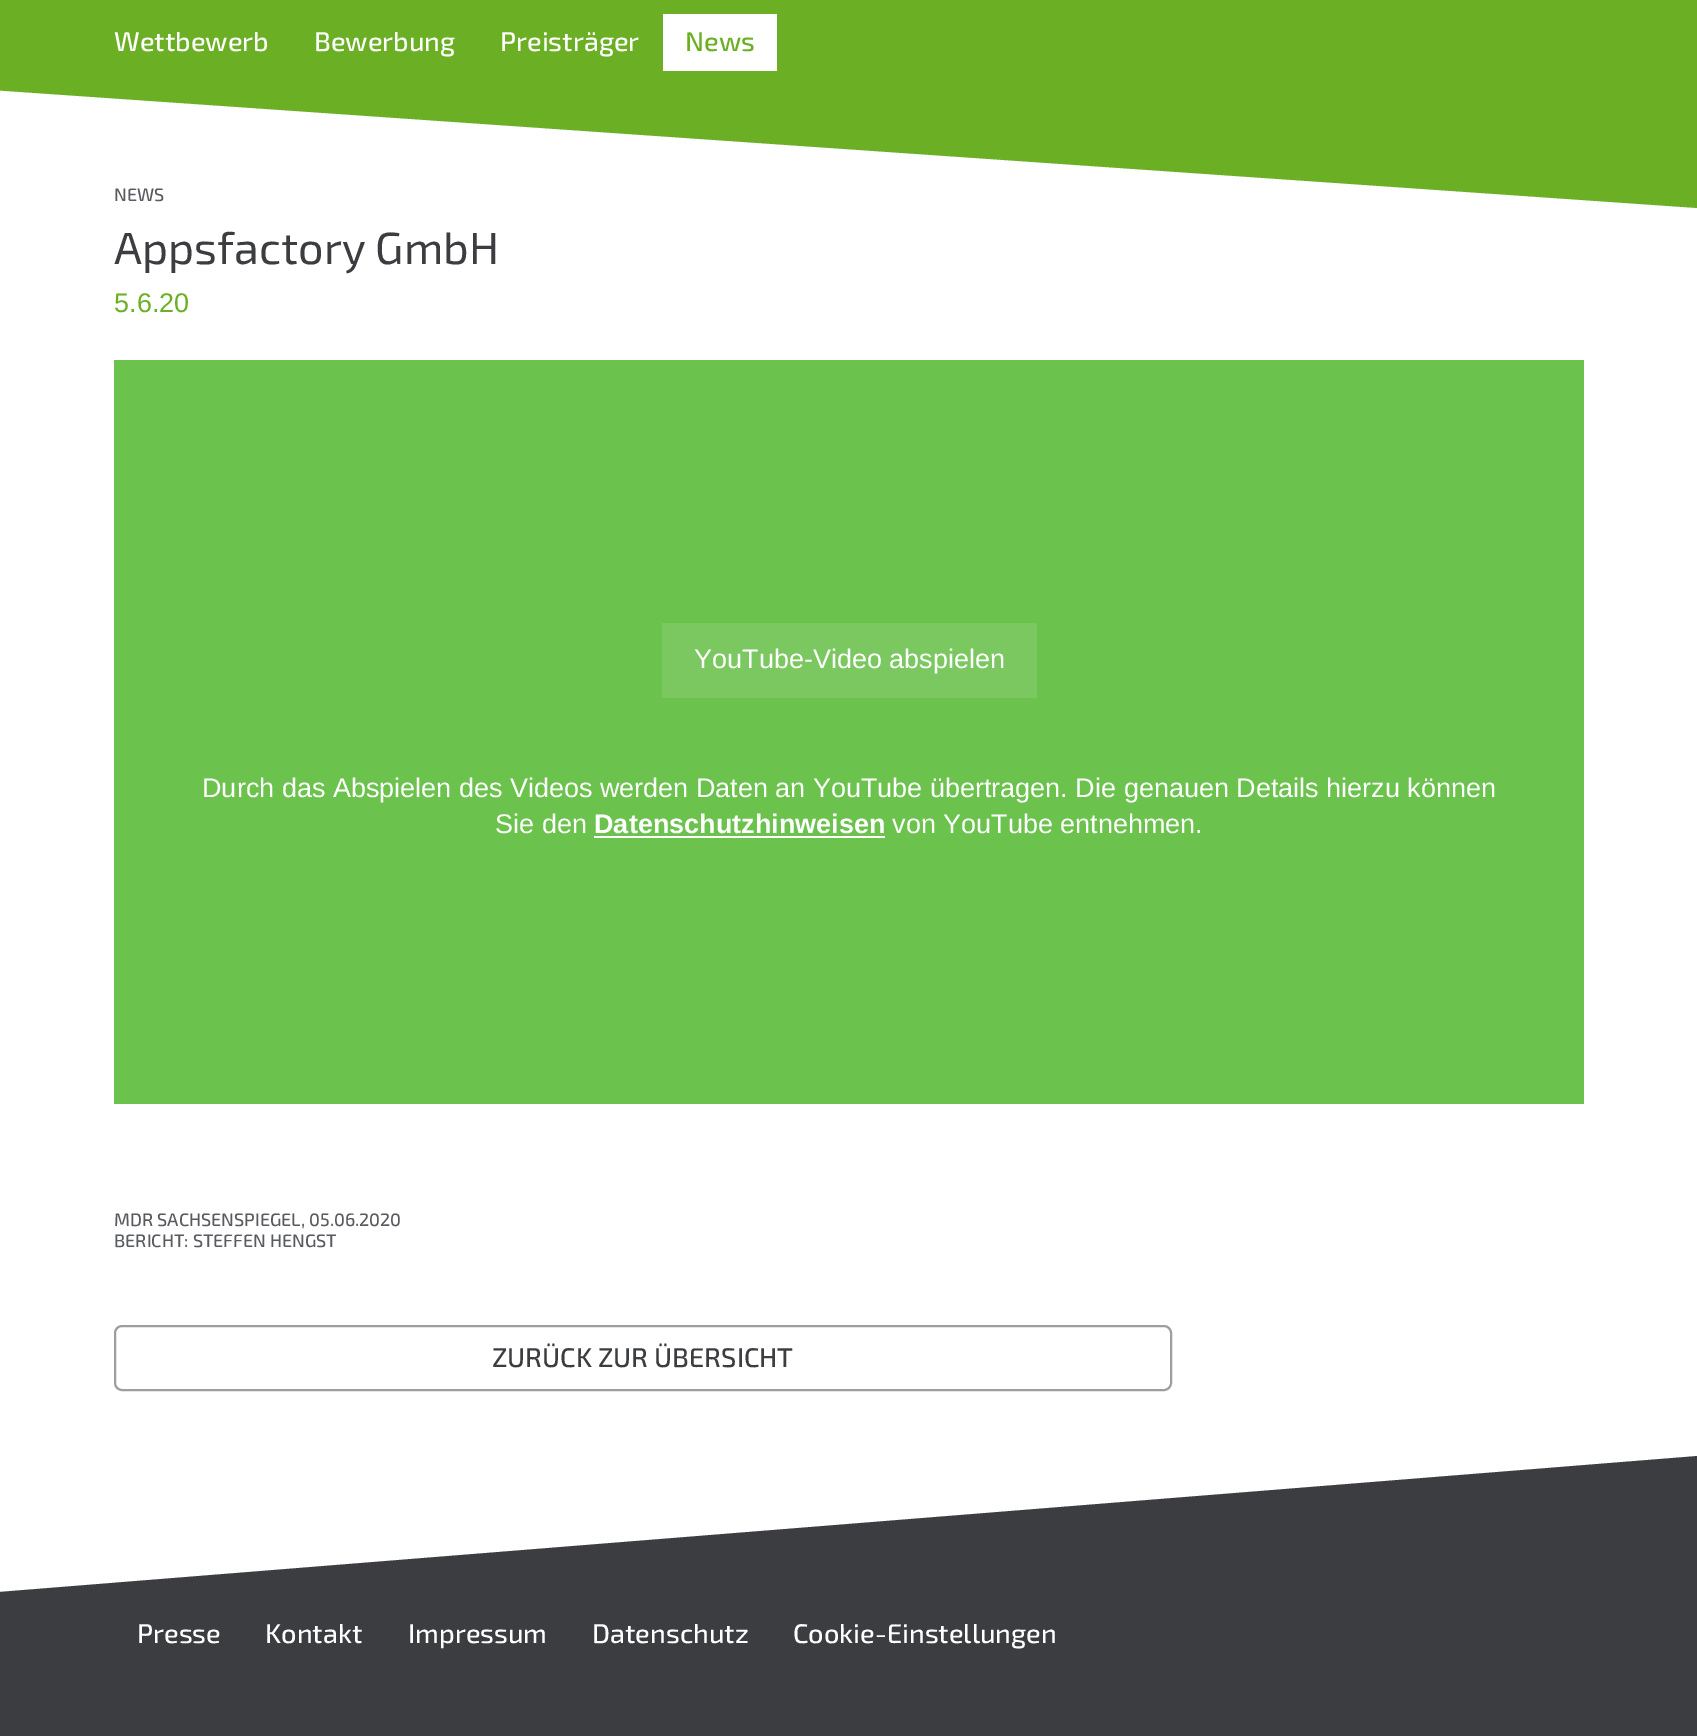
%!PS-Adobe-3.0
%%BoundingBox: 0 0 1697 1736
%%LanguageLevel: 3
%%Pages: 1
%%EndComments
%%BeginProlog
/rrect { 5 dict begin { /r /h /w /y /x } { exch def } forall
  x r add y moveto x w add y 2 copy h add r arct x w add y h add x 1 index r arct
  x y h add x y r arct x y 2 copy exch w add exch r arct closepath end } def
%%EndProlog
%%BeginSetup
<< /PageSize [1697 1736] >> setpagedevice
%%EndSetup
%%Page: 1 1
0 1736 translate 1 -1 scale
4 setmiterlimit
1 setgray
0 0 1697 1736 rectfill
0.42 0.761 0.302 setrgbcolor
114 360 1470 744 rectfill
0.478 0.784 0.373 setrgbcolor
662 623 375 75 rectfill
1 setgray
594 836 291 2 rectfill
0.616 0.62 0.627 setrgbcolor
2 setlinewidth
115 1326 1056 64 7 rrect stroke
0.231 0.239 0.251 setrgbcolor
0 1640 1697 96 rectfill
newpath 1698 1640 moveto -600 1640 lineto 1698 1456 lineto closepath fill
/Exo2-Medium [18 0 0 -18 0 0] selectfont
0.349 0.357 0.376 setrgbcolor
114 201 moveto (NEWS) show
0.42 0.69 0.141 setrgbcolor
newpath -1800 -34 moveto 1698 -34 lineto 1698 208 lineto closepath fill
1 setgray
663 14 114 57 rectfill
/Exo2-Medium [27 0 0 -27 0 0] selectfont
0.42 0.69 0.141 setrgbcolor
685 51 moveto (News) show
1 setgray
500 51 moveto (Preisträger) show
314 51 moveto (Bewerbung) show
114 51 moveto (Wettbewerb) show
/Exo2-Regular [45 0 0 -45 0 0] selectfont
0.231 0.239 0.251 setrgbcolor
114 264 moveto (Appsfactory GmbH) show
/LiberationSans-Regular [27 0 0 -27 0 0] selectfont
0.42 0.69 0.141 setrgbcolor
114 312 moveto (5.6.20) show
1 setgray
694 668 moveto (YouTube-Video abspielen) show
202 797 moveto (Durch das Abspielen des Videos werden Daten an YouTube übertragen. Die genauen Details hierzu können) show
495 833 moveto (Sie den) show
/LiberationSans-Bold [27 0 0 -27 0 0] selectfont
594 833 moveto (Datenschutzhinweisen) show
/LiberationSans-Regular [27 0 0 -27 0 0] selectfont
892 833 moveto (von YouTube entnehmen.) show
/Exo2-Medium [18 0 0 -18 0 0] selectfont
0.349 0.357 0.376 setrgbcolor
114 1226 moveto (MDR SACHSENSPIEGEL, 05.06.2020) show
114 1247 moveto (BERICHT: STEFFEN HENGST) show
/Exo2-Medium [27 0 0 -27 0 0] selectfont
0.231 0.239 0.251 setrgbcolor
492 1367 moveto (ZURÜCK ZUR ÜBERSICHT) show
1 setgray
137 1643 moveto (Presse) show
265 1643 moveto (Kontakt) show
408 1643 moveto (Impressum) show
592 1643 moveto (Datenschutz) show
793 1643 moveto (Cookie-Einstellungen) show
showpage
%%EOF
